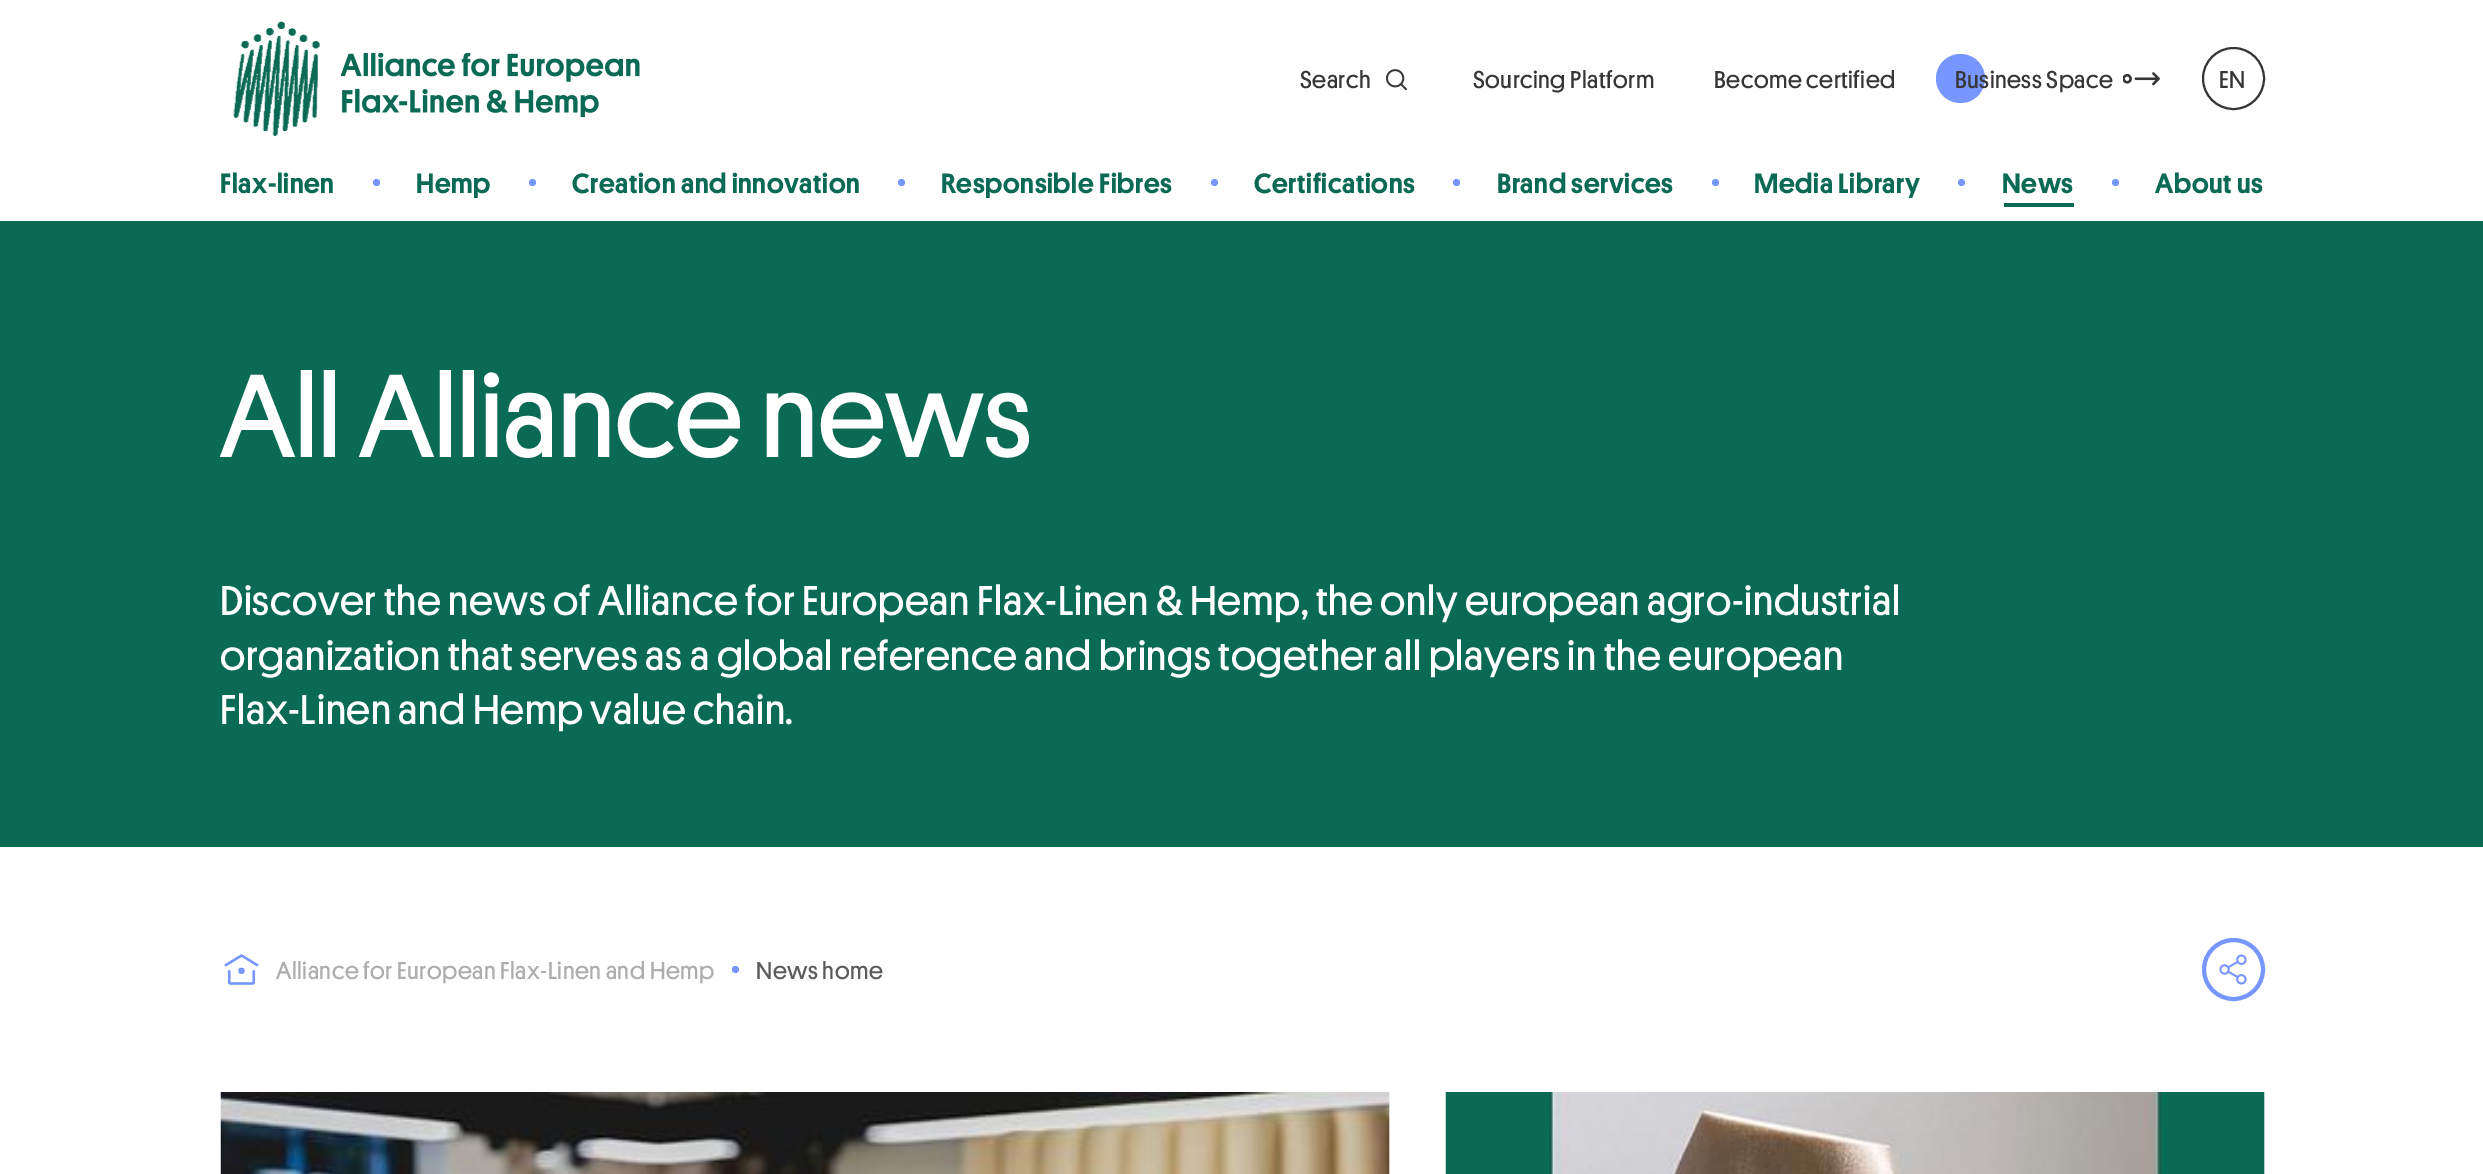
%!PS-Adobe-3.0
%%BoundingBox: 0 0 2483 1174
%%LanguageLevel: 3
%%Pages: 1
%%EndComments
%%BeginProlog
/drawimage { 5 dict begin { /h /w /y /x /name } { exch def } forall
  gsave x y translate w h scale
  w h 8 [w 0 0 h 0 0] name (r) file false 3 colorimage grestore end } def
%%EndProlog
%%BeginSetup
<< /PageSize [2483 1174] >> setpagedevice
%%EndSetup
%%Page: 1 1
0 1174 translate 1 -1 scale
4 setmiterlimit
1 setgray
0 0 2483 1174 rectfill
(images/1.raw) 233 21 88 115 drawimage
(images/2.raw) 341 53 299 64 drawimage
(images/3.raw) 1386 69 21 22 drawimage
0.471 0.588 1 setrgbcolor
newpath 1960.5 78.5 24.5 0 360 arc closepath fill
(images/4.raw) 2123 72 37 14 drawimage
0.212 setgray
2 setlinewidth
newpath 2233.5 78.5 30.5 0 360 arc closepath stroke
0.471 0.588 1 setrgbcolor
newpath 376.5 182.5 3.5 0 360 arc closepath fill
newpath 532.5 182.5 3.5 0 360 arc closepath fill
newpath 901.5 182.5 3.5 0 360 arc closepath fill
newpath 1214.5 182.5 3.5 0 360 arc closepath fill
newpath 1456.5 182.5 3.5 0 360 arc closepath fill
newpath 1715.5 182.5 3.5 0 360 arc closepath fill
newpath 1961.5 182.5 3.5 0 360 arc closepath fill
0.039 0.416 0.329 setrgbcolor
2004 203 70 4 rectfill
0.471 0.588 1 setrgbcolor
newpath 2115.5 182.5 3.5 0 360 arc closepath fill
0.039 0.416 0.329 setrgbcolor
0 221 2483 626 rectfill
(images/5.raw) 224 954 35 31 drawimage
0.471 0.588 1 setrgbcolor
newpath 735.5 969.5 3.5 0 360 arc closepath fill
4 setlinewidth
newpath 2233.5 969.5 29.5 0 360 arc closepath stroke
(images/6.raw) 2219 954 28 31 drawimage
0.949 0.961 1 setrgbcolor
1389 1092 1 82 rectfill
(images/7.raw) 220 1092 1170 82 drawimage
2264 1092 1 82 rectfill
(images/8.raw) 1445 1092 820 82 drawimage
/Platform-Regular [24.5 0 0 -24.5 0 0] selectfont
0.212 setgray
1300 88 moveto 0.5 0 (Search) ashow
1473 88 moveto 0.5 0 (Sourcing Platform) ashow
1714 88 moveto 0.5 0 (Become certified) ashow
1955 88 moveto 0.5 0 (Business Space) ashow
2219 88 moveto 0.5 0 (EN) ashow
/Platform-Medium [28 0 0 -28 0 0] selectfont
0.039 0.416 0.329 setrgbcolor
220 193 moveto 0.6 0 (Flax-linen) ashow
416 193 moveto 0.6 0 (Hemp) ashow
572 193 moveto 0.6 0 (Creation and innovation) ashow
941 193 moveto 0.6 0 (Responsible Fibres) ashow
1254 193 moveto 0.6 0 (Certifications) ashow
1497 193 moveto 0.6 0 (Brand services) ashow
1754 193 moveto 0.6 0 (Media Library) ashow
2002 193 moveto 0.6 0 (News) ashow
2155 193 moveto 0.6 0 (About us) ashow
/Platform-Regular [119 0 0 -119 0 0] selectfont
1 setgray
220 457 moveto (All Alliance news) show
/Platform-Regular [42 0 0 -42 0 0] selectfont
220 615 moveto 0.63 0 (Discover the news of Alliance for European Flax-Linen & Hemp, the only european agro-industrial) ashow
220 670 moveto 0.63 0 (organization that serves as a global reference and brings together all players in the european) ashow
220 724 moveto 0.63 0 (Flax-Linen and Hemp value chain.) ashow
/Platform-Regular [24.5 0 0 -24.5 0 0] selectfont
0.678 setgray
276 979 moveto 0.5 0 (Alliance for European Flax-Linen and Hemp) ashow
0.361 setgray
756 979 moveto 0.5 0 (News home) ashow
showpage
%%EOF
